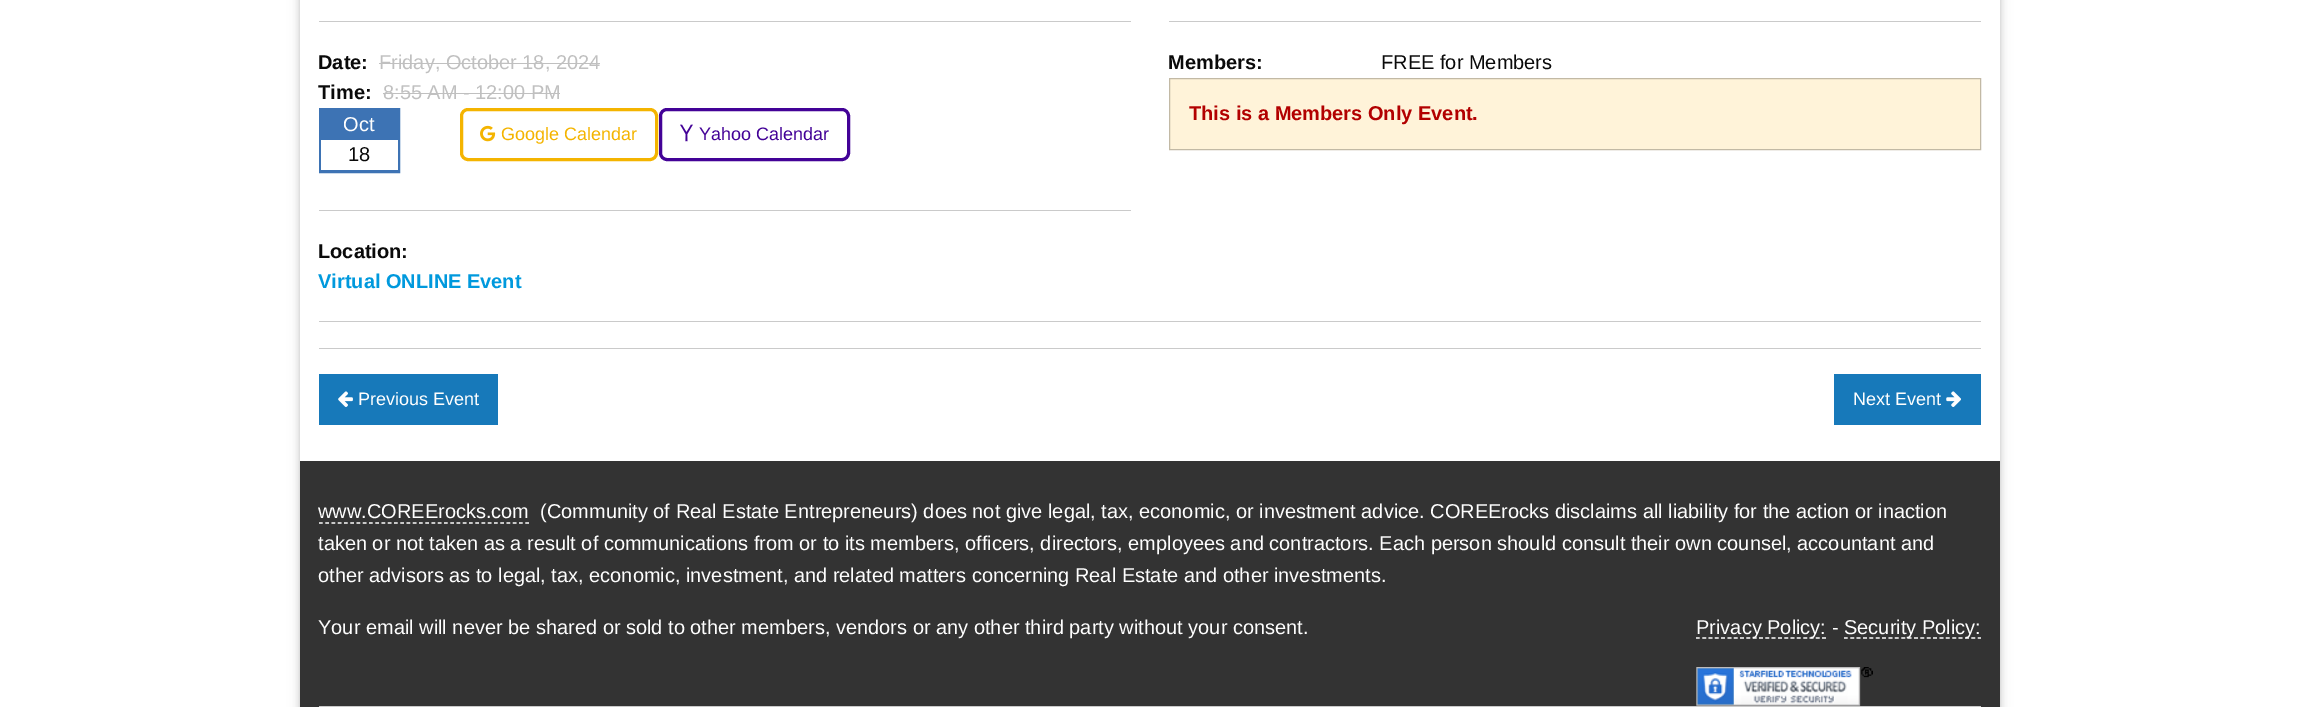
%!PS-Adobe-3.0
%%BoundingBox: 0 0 2298 707
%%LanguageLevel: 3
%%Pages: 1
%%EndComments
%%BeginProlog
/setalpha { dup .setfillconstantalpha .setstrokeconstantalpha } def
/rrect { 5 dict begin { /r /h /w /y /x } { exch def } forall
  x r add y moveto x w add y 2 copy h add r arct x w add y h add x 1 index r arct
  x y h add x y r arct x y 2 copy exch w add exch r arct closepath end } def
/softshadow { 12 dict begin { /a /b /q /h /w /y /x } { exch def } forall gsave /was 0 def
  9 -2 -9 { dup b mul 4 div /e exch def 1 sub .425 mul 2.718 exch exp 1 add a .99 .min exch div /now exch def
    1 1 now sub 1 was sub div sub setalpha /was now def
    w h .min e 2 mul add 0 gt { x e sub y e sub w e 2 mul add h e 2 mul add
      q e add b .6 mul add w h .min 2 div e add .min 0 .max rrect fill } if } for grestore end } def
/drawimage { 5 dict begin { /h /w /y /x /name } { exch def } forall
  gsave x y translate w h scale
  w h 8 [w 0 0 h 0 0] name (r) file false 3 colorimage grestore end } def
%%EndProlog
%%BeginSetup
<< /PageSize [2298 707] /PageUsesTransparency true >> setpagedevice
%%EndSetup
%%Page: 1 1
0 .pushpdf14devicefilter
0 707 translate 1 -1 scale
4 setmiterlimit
1 setgray
0 0 2298 707 rectfill
gsave
newpath 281 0 moveto 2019 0 lineto 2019 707 lineto 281 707 lineto closepath 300 -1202 moveto 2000 -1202 lineto 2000 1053 lineto 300 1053 lineto closepath eoclip newpath
0 setgray
300 -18 1700 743 0 6 0.12 softshadow
grestore
gsave
newpath 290 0 moveto 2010 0 lineto 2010 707 lineto 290 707 lineto closepath 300 -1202 moveto 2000 -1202 lineto 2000 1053 lineto 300 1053 lineto closepath eoclip newpath
0 setgray
300 -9 1700 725 0 3 0.16 softshadow
grestore
0.792 setgray
319 21 812 1 rectfill
0.753 setgray
379 63 221 1 rectfill
383 93 177 1 rectfill
0.239 0.451 0.706 setrgbcolor
3 setlinewidth
320.5 109.5 78 62 rectstroke
322 111 75 29 rectfill
1 setgray
321 140 77 30 rectfill
0.957 0.706 0 setrgbcolor
461.5 109.5 195 50 6.5 rrect stroke
(images/1.raw) 480 125 16 17 drawimage
0.263 0.008 0.592 setrgbcolor
660.5 109.5 188 50 6.5 rrect stroke
(images/2.raw) 680 124 13 18 drawimage
0.792 setgray
319 210 812 1 rectfill
1169 21 812 1 rectfill
1 0.953 0.851 setrgbcolor
newpath 1169.5 78.5 moveto 1980.5 78.5 lineto 1980.5 149.5 lineto 1169.5 149.5 lineto closepath gsave fill grestore
0.761 0.725 0.647 setrgbcolor
1 setlinewidth
stroke
0.792 setgray
319 321 1662 1 rectfill
319 348 1662 1 rectfill
0.09 0.475 0.729 setrgbcolor
319 374 179 51 rectfill
(images/3.raw) 338 391 15 16 drawimage
1834 374 147 51 rectfill
(images/4.raw) 1946 391 15 16 drawimage
0.2 setgray
300 461 1700 246 rectfill
1 setgray
1.2 setlinewidth
[3.75 2.5] 0 setdash
newpath 319 523 moveto 529 523 lineto stroke
[3.75 2.56] 0 setdash
newpath 1696 638 moveto 1826 638 lineto stroke
[3.75 2.62] 0 setdash
newpath 1844 638 moveto 1981 638 lineto stroke
(images/5.raw) 1696 667 177 39 drawimage
0.792 setgray
319 706 1662 1 rectfill
/LiberationSans-Bold [20 0 0 -20 0 0] selectfont
0.039 setgray
318 69 moveto (Date:) show
/LiberationSans-Regular [20 0 0 -20 0 0] selectfont
0.753 setgray
379 69 moveto (Friday, October 18, 2024) show
/LiberationSans-Bold [20 0 0 -20 0 0] selectfont
0.039 setgray
318 99 moveto (Time:) show
/LiberationSans-Regular [20 0 0 -20 0 0] selectfont
0.753 setgray
383 99 moveto (8:55 AM - 12:00 PM) show
0.996 setgray
343 131 moveto (Oct) show
0.039 setgray
348 161 moveto (18) show
/LiberationSans-Regular [18 0 0 -18 0 0] selectfont
0.957 0.706 0 setrgbcolor
501 140 moveto (Google Calendar) show
0.263 0.008 0.592 setrgbcolor
699 140 moveto (Yahoo Calendar) show
/LiberationSans-Bold [20 0 0 -20 0 0] selectfont
0.039 setgray
318 258 moveto (Location:) show
0 0.6 0.867 setrgbcolor
318 288 moveto (Virtual ONLINE Event) show
0.039 setgray
1168 69 moveto (Members:) show
/LiberationSans-Regular [20 0 0 -20 0 0] selectfont
1381 69 moveto (FREE for Members) show
/LiberationSans-Bold [20 0 0 -20 0 0] selectfont
0.698 0 0 setrgbcolor
1189 120 moveto (This is a Members Only Event.) show
/LiberationSans-Regular [18 0 0 -18 0 0] selectfont
0.996 setgray
358 405 moveto (Previous Event) show
1853 405 moveto (Next Event) show
/LiberationSans-Regular [20 0 0 -20 0 0] selectfont
318 518 moveto (www.COREErocks.com) show
540 518 moveto (\(Community of Real Estate Entrepreneurs\) does not give legal, tax, economic, or investment advice. COREErocks disclaims all liability for the action or inaction) show
318 550 moveto (taken or not taken as a result of communications from or to its members, officers, directors, employees and contractors. Each person should consult their own counsel, accountant and) show
318 582 moveto (other advisors as to legal, tax, economic, investment, and related matters concerning Real Estate and other investments.) show
318 634 moveto (Your email will never be shared or sold to other members, vendors or any other third party without your consent.) show
1696 634 moveto (Privacy Policy: -) show
1844 634 moveto (Security Policy:) show
.poppdf14devicefilter showpage
%%EOF
